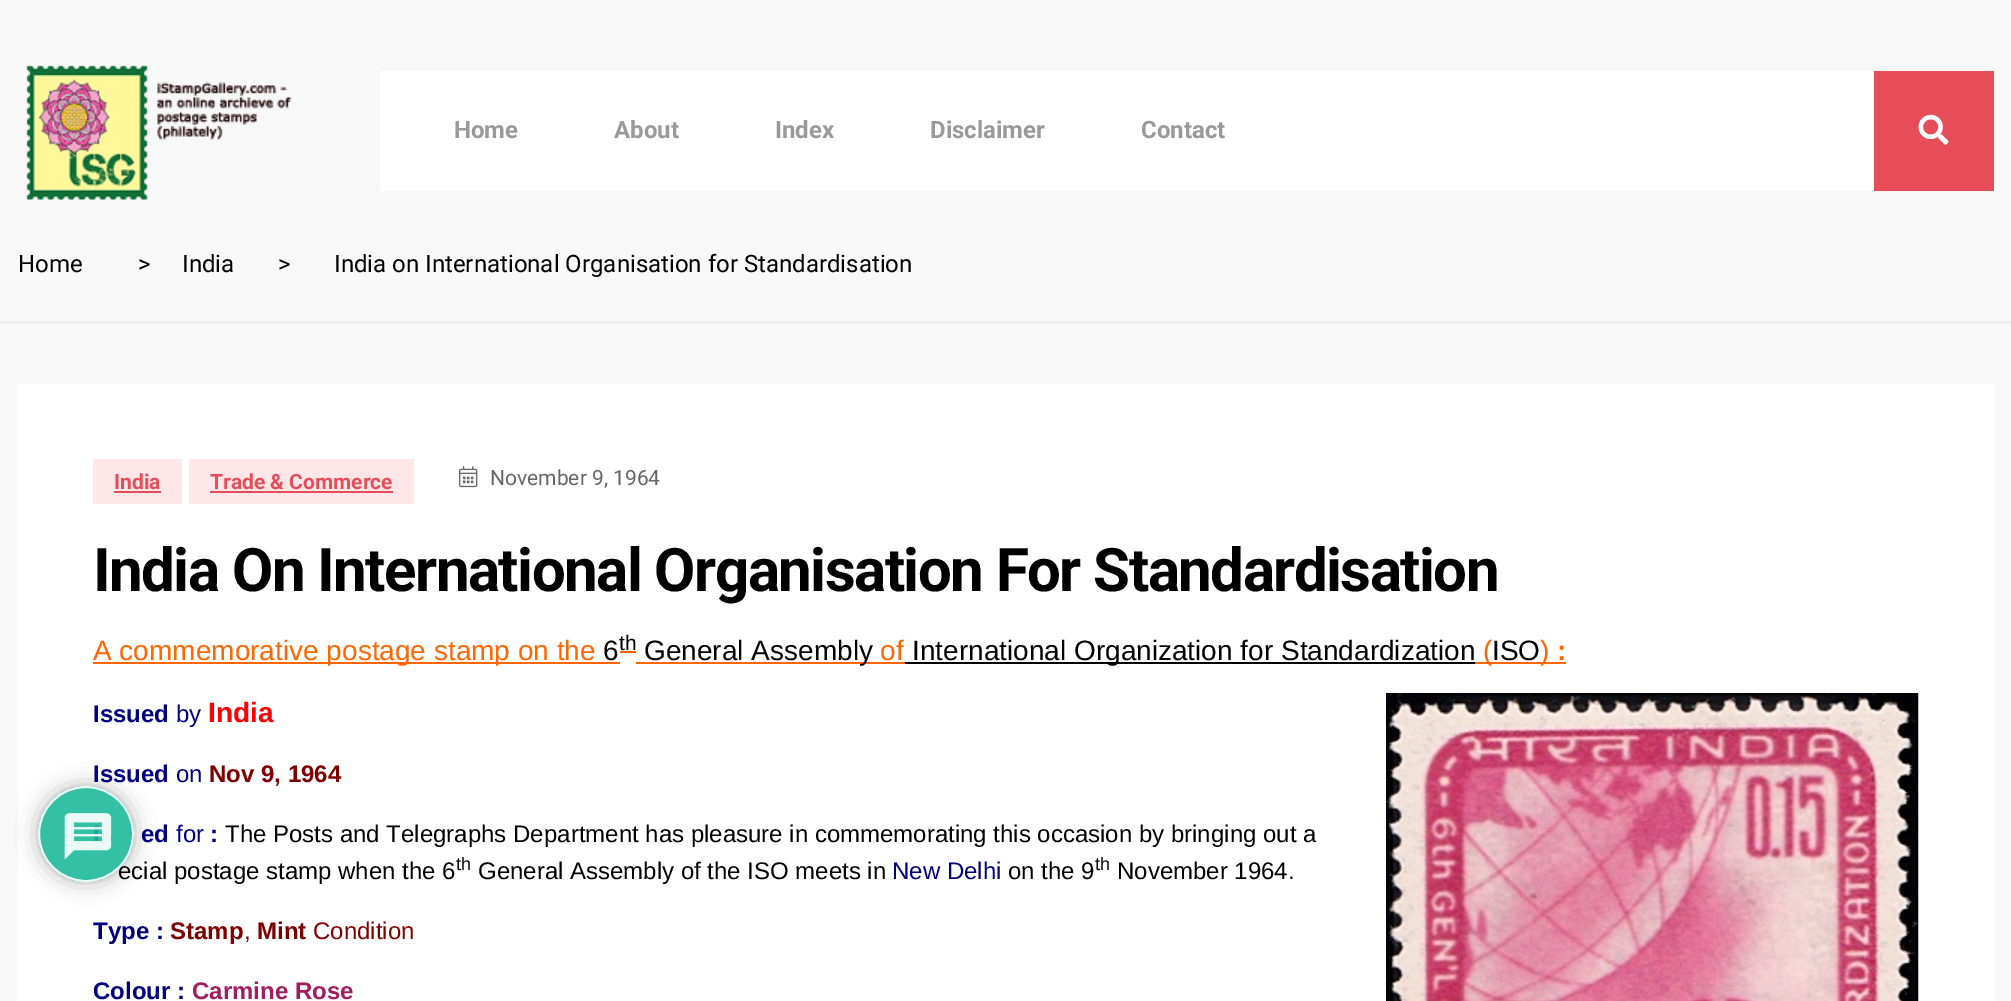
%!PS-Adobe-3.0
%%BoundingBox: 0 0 2011 1001
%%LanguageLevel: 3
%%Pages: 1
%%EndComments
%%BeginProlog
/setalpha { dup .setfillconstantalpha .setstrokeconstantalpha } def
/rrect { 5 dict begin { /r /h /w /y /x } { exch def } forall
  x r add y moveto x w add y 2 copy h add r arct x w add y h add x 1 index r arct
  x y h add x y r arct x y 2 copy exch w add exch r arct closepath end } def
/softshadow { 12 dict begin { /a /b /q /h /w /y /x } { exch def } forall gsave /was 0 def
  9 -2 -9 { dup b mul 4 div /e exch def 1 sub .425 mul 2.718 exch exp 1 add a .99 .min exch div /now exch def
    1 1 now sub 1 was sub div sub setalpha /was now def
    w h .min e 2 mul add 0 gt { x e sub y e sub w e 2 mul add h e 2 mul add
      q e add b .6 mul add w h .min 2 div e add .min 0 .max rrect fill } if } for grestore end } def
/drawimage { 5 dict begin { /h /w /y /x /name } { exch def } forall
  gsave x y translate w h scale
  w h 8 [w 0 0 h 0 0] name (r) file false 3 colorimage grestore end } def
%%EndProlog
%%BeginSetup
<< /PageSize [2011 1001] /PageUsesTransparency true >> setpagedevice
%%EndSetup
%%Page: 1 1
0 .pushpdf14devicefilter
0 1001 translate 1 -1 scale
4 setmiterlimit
0.973 setgray
0 0 2011 1001 rectfill
(images/1.raw) 26 65 266 135 drawimage
1 setgray
380 71 1494 120 rectfill
0.906 0.302 0.345 setrgbcolor
1874 71 120 120 rectfill
(images/2.raw) 1918 114 31 31 drawimage
0.929 setgray
0 321 2011 3 rectfill
1 setgray
18 384 1976 617 rectfill
1 0.906 0.914 setrgbcolor
93 459 89 45 rectfill
0.906 0.302 0.345 setrgbcolor
114 491 47 2 rectfill
1 0.906 0.914 setrgbcolor
189 459 225 45 rectfill
0.906 0.302 0.345 setrgbcolor
210 491 183 2 rectfill
(images/3.raw) 459 466 19 22 drawimage
1 0.4 0 setrgbcolor
93 662 527 2 rectfill
620 651 16 2 rectfill
636 662 269 2 rectfill
0 setgray
905 662 570 2 rectfill
1 0.4 0 setrgbcolor
1475 662 91 2 rectfill
(images/4.raw) 1386 693 533 308 drawimage
gsave
newpath 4 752 moveto 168 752 lineto 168 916 lineto 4 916 lineto closepath 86 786 moveto 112.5 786 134 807.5 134 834 curveto 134 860.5 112.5 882 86 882 curveto 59.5 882 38 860.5 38 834 curveto 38 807.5 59.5 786 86 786 curveto closepath eoclip newpath
0.667 setgray
38 786 96 96 48 11 0.9 softshadow
grestore
/Roboto-Bold [24 0 0 -24 0 0] selectfont
0.6 setgray
454 138 moveto (Home) show
614 138 moveto (About) show
775 138 moveto (Index) show
930 138 moveto (Disclaimer) show
1141 138 moveto (Contact) show
/Roboto-Regular [24 0 0 -24 0 0] selectfont
0 setgray
18 272 moveto (Home) show
138 272 moveto (>) show
182 272 moveto (India) show
278 272 moveto (>) show
334 272 moveto (India on International Organisation for Standardisation) show
/Roboto-Bold [21 0 0 -21 0 0] selectfont
0.906 0.302 0.345 setrgbcolor
114 489 moveto (India) show
210 489 moveto (Trade & Commerce) show
/Roboto-Regular [21 0 0 -21 0 0] selectfont
0.4 setgray
490 485 moveto (November 9, 1964) show
/Roboto-Bold [60 0 0 -60 0 0] selectfont
0 setgray
93 591 moveto -1.5 0 (India On International Organisation For Standardisation) ashow
/LiberationSans-Regular [28 0 0 -28 0 0] selectfont
1 0.4 0 setrgbcolor
93 660 moveto (A commemorative postage stamp on the) show
0 setgray
603 660 moveto (6) show
/LiberationSans-Regular [21 0 0 -21 0 0] selectfont
619 650 moveto (th) show
/LiberationSans-Regular [28 0 0 -28 0 0] selectfont
644 660 moveto (General Assembly) show
1 0.4 0 setrgbcolor
880 660 moveto (of) show
0 setgray
912 660 moveto (International Organization for Standardization) show
1 0.4 0 setrgbcolor
1483 660 moveto (\() show
0 setgray
1492 660 moveto (ISO) show
1 0.4 0 setrgbcolor
1540 660 moveto (\)) show
/LiberationSans-Bold [28 0 0 -28 0 0] selectfont
1557 660 moveto (:) show
/LiberationSans-Bold [24 0 0 -24 0 0] selectfont
0 0 0.502 setrgbcolor
93 722 moveto (Issued) show
/LiberationSans-Regular [24 0 0 -24 0 0] selectfont
176 722 moveto (by) show
/LiberationSans-Bold [28 0 0 -28 0 0] selectfont
1 0 0 setrgbcolor
208 722 moveto (India) show
/LiberationSans-Bold [24 0 0 -24 0 0] selectfont
0 0 0.502 setrgbcolor
93 782 moveto (Issued) show
/LiberationSans-Regular [24 0 0 -24 0 0] selectfont
176 782 moveto (on) show
/LiberationSans-Bold [24 0 0 -24 0 0] selectfont
0.502 0 0 setrgbcolor
209 782 moveto (Nov 9, 1964) show
0 0 0.502 setrgbcolor
141 842 moveto (ed) show
/LiberationSans-Regular [24 0 0 -24 0 0] selectfont
176 842 moveto (for) show
/LiberationSans-Bold [24 0 0 -24 0 0] selectfont
210 842 moveto (:) show
/LiberationSans-Regular [24 0 0 -24 0 0] selectfont
0 setgray
225 842 moveto (The Posts and Telegraphs Department has pleasure in commemorating this occasion by bringing out a) show
118 879 moveto (ecial postage stamp when the 6) show
/LiberationSans-Regular [18 0 0 -18 0 0] selectfont
456 870 moveto (th) show
/LiberationSans-Regular [24 0 0 -24 0 0] selectfont
478 879 moveto (General Assembly of the ISO meets in) show
0 0 0.502 setrgbcolor
892 879 moveto (New Delhi) show
0 setgray
1008 879 moveto (on the 9) show
/LiberationSans-Regular [18 0 0 -18 0 0] selectfont
1095 870 moveto (th) show
/LiberationSans-Regular [24 0 0 -24 0 0] selectfont
1117 879 moveto (November 1964.) show
/LiberationSans-Bold [24 0 0 -24 0 0] selectfont
0 0 0.502 setrgbcolor
93 939 moveto (Type :) show
0.502 0 0 setrgbcolor
170 939 moveto (Stamp) show
/LiberationSans-Regular [24 0 0 -24 0 0] selectfont
244 939 moveto (,) show
/LiberationSans-Bold [24 0 0 -24 0 0] selectfont
257 939 moveto (Mint) show
/LiberationSans-Regular [24 0 0 -24 0 0] selectfont
313 939 moveto (Condition) show
/LiberationSans-Bold [24 0 0 -24 0 0] selectfont
0 0 0.502 setrgbcolor
93 999 moveto (Colour :) show
0.639 0.11 0.384 setrgbcolor
192 999 moveto (Carmine Rose) show
0.9 setalpha
0.114 0.725 0.604 setrgbcolor
newpath 86 834 48 0 360 arc closepath fill
1 setgray
2 setlinewidth
newpath 86 834 47 0 360 arc closepath stroke
1 setalpha
(images/5.raw) 64 813 48 47 drawimage
.poppdf14devicefilter showpage
%%EOF
